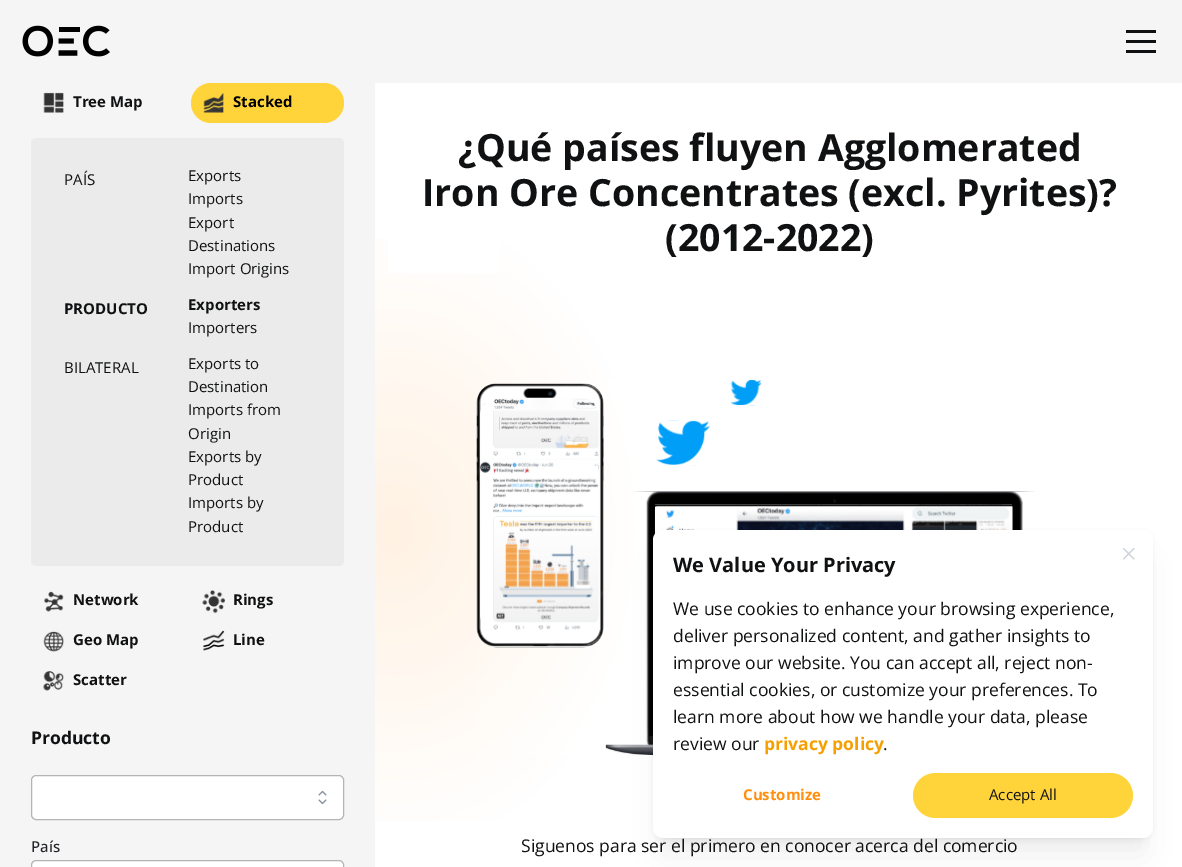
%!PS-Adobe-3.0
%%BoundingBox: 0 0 1182 867
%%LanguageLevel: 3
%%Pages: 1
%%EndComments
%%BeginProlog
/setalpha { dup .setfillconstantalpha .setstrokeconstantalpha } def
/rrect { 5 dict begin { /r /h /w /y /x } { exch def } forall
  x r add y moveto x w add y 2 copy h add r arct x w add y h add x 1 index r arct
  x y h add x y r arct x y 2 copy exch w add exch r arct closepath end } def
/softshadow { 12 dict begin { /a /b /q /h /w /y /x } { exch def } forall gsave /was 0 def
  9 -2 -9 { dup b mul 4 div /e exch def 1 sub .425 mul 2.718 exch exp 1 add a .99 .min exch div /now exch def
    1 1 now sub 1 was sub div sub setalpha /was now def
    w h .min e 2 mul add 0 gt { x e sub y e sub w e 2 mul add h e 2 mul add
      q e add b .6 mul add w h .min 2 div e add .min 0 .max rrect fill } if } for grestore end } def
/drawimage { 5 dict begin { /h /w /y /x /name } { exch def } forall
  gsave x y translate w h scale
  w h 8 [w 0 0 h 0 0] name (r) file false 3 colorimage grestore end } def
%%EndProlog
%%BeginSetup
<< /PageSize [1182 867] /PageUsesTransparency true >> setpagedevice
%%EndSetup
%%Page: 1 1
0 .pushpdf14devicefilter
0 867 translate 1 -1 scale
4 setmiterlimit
1 setgray
0 0 1182 867 rectfill
0.961 setgray
0 0 1182 83 rectfill
(images/1.raw) 22 25 88 32 drawimage
0.063 0.067 0.071 setrgbcolor
1126 40 30 3 rectfill
1126 30 30 3 rectfill
1126 50 30 3 rectfill
0.961 setgray
0 83 375 784 rectfill
(images/2.raw) 43 92 21 21 drawimage
1 0.831 0.231 setrgbcolor
191 83 153 40 20 rrect fill
(images/3.raw) 203 93 21 20 drawimage
0.922 setgray
31 138 313 428 5 rrect fill
(images/4.raw) 44 591 20 21 drawimage
(images/5.raw) 202 590 23 24 drawimage
(images/6.raw) 43 631 21 21 drawimage
(images/7.raw) 203 630 22 21 drawimage
(images/8.raw) 43 671 21 20 drawimage
1 setgray
31.5 775.5 312 44 4.5 rrect gsave fill grestore
0.706 setgray
stroke
(images/9.raw) 318 790 9 15 drawimage
1 setgray
31.5 860.5 312 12 4.5 rrect gsave fill grestore
0.706 setgray
stroke
gsave newpath 375 239 moveto 622 239 lineto 622 821 lineto 375 821 lineto closepath clip newpath 394 530 translate 250 320 scale
<< /ShadingType 3 /ColorSpace /DeviceRGB /Coords [0 0 0 0 0 1] /Extend [true true] /Function << /FunctionType 2 /Domain [0 1] /C0 [1 0.949 0.89] /C1 [1 1 1] /N 1 >> >> shfill grestore
1 setgray
388 239 112 34 rectfill
(images/10.raw) 476 380 559 375 drawimage
0 setgray
659 549 487 295 4 6 0.04 softshadow
659 561 487 295 4 15.5 0.05 softshadow
653 531 500 308 10 2 0.05 softshadow
1 setgray
653 530 500 308 10 rrect fill
(images/11.raw) 1123 548 12 12 drawimage
1 0.831 0.231 setrgbcolor
913 773 220 45 22.5 rrect fill
/OpenSans-Bold [15 0 0 -15 0 0] selectfont
0.063 0.067 0.071 setrgbcolor
73 107 moveto (Tree Map) show
0 setgray
233 107 moveto (Stacked) show
/OpenSans-Regular [15 0 0 -15 0 0] selectfont
0.063 0.067 0.071 setrgbcolor
64 185 moveto (PAÍS) show
188 181 moveto (Exports) show
188 204 moveto (Imports) show
188 228 moveto (Export) show
188 251 moveto (Destinations) show
188 274 moveto (Import Origins) show
/OpenSans-Bold [15 0 0 -15 0 0] selectfont
64 314 moveto (PRODUCTO) show
188 310 moveto (Exporters) show
/OpenSans-Regular [15 0 0 -15 0 0] selectfont
188 333 moveto (Importers) show
64 373 moveto (BILATERAL) show
188 369 moveto (Exports to) show
188 392 moveto (Destination) show
188 415 moveto (Imports from) show
188 439 moveto (Origin) show
188 462 moveto (Exports by) show
188 485 moveto (Product) show
188 508 moveto (Imports by) show
188 532 moveto (Product) show
/OpenSans-Bold [15 0 0 -15 0 0] selectfont
73 605 moveto (Network) show
233 605 moveto (Rings) show
73 645 moveto (Geo Map) show
233 645 moveto (Line) show
73 685 moveto (Scatter) show
/OpenSans-Bold [17.5 0 0 -17.5 0 0] selectfont
31 744 moveto (Producto) show
/OpenSans-Medium [15 0 0 -15 0 0] selectfont
0.129 0.145 0.161 setrgbcolor
31 852 moveto (País) show
/OpenSans-Bold [37.5 0 0 -37.5 0 0] selectfont
0.063 0.067 0.071 setrgbcolor
458 161 moveto (¿Qué países fluyen Agglomerated) show
422 206 moveto (Iron Ore Concentrates \(excl. Pyrites\)?) show
665 251 moveto (\(2012-2022\)) show
/OpenSans-Regular [17.5 0 0 -17.5 0 0] selectfont
521 852 moveto (Siguenos para ser el primero en conocer acerca del comercio) show
/OpenSans-Bold [20 0 0 -20 0 0] selectfont
673 572 moveto (We Value Your Privacy) show
/OpenSans-Regular [17.5 0 0 -17.5 0 0] selectfont
673 615 moveto (We use cookies to enhance your browsing experience,) show
673 642 moveto (deliver personalized content, and gather insights to) show
673 669 moveto (improve our website. You can accept all, reject non-) show
673 696 moveto (essential cookies, or customize your preferences. To) show
673 723 moveto (learn more about how we handle your data, please) show
673 750 moveto (review our) show
/OpenSans-Bold [17.5 0 0 -17.5 0 0] selectfont
0.961 0.624 0 setrgbcolor
764 750 moveto (privacy policy) show
/OpenSans-Regular [17.5 0 0 -17.5 0 0] selectfont
0.063 0.067 0.071 setrgbcolor
883 750 moveto (.) show
/OpenSans-Bold [15 0 0 -15 0 0] selectfont
1 0.561 0.051 setrgbcolor
743 800 moveto (Customize) show
/OpenSans-Regular [15 0 0 -15 0 0] selectfont
0.063 0.067 0.071 setrgbcolor
989 800 moveto (Accept All) show
.poppdf14devicefilter showpage
%%EOF
